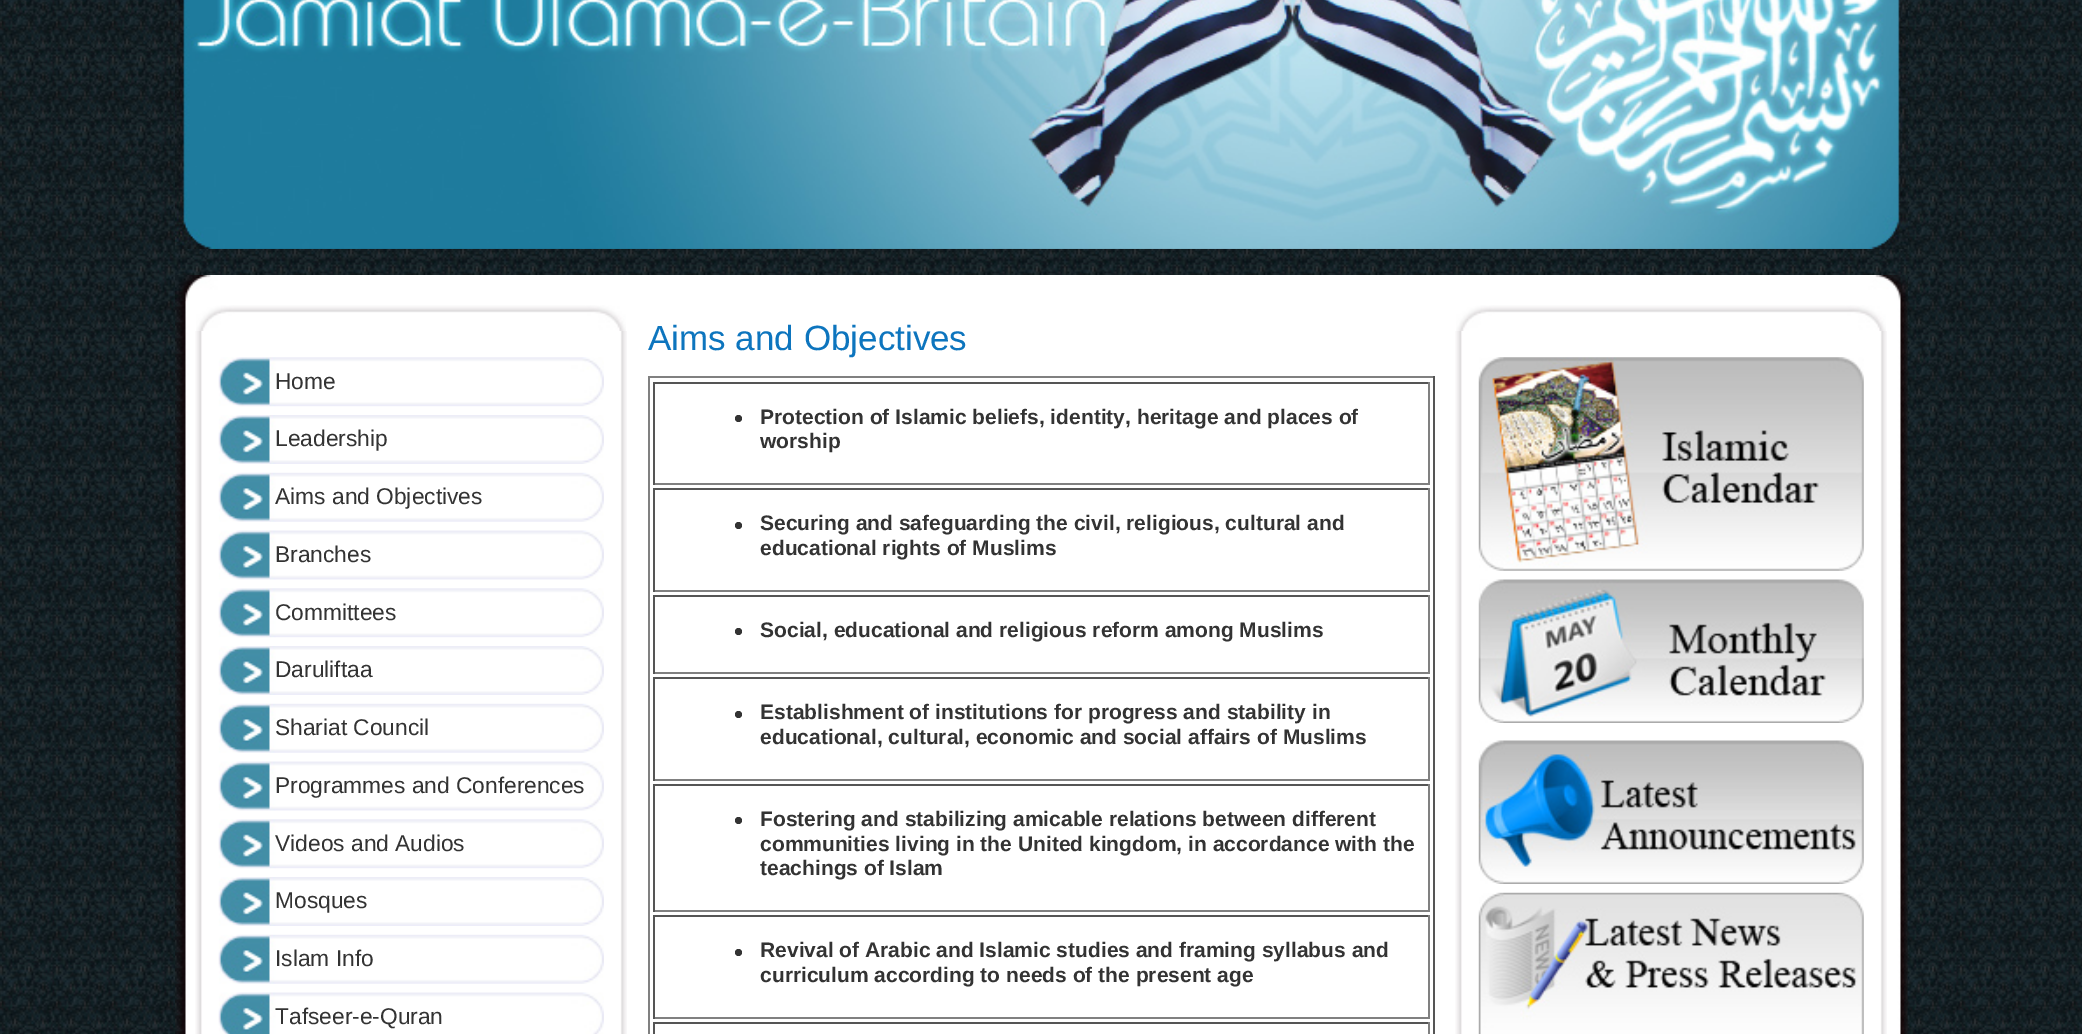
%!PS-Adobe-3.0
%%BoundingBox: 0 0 2082 1034
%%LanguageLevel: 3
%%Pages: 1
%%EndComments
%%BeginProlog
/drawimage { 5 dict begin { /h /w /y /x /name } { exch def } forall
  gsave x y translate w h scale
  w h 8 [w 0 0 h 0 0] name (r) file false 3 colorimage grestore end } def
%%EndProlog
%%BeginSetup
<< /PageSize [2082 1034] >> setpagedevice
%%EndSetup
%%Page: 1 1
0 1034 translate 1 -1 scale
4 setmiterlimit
1 setgray
0 0 2082 1034 rectfill
(images/1.raw) 0 0 2082 1034 drawimage
(images/2.raw) 175 0 1733 249 drawimage
(images/3.raw) 188 4 1720 245 drawimage
(images/4.raw) 175 275 1733 759 drawimage
(images/5.raw) 175 275 1733 27 drawimage
(images/6.raw) 196 305 430 26 drawimage
(images/7.raw) 195 331 432 703 drawimage
(images/8.raw) 218 357 386 50 drawimage
(images/9.raw) 218 415 386 49 drawimage
(images/10.raw) 218 472 386 50 drawimage
(images/11.raw) 218 530 386 50 drawimage
(images/8.raw) 218 588 386 50 drawimage
(images/9.raw) 218 646 386 49 drawimage
(images/10.raw) 218 703 386 50 drawimage
(images/11.raw) 218 761 386 50 drawimage
(images/8.raw) 218 819 386 50 drawimage
(images/9.raw) 218 877 386 49 drawimage
(images/10.raw) 218 934 386 50 drawimage
(images/12.raw) 218 992 386 42 drawimage
0.502 setgray
648 376 787 2 rectfill
0.333 setgray
1433 376 2 658 rectfill
0.502 setgray
648 376 2 658 rectfill
0.333 setgray
653 382 777 2 rectfill
0.502 setgray
1428 382 2 103 rectfill
653 483 777 2 rectfill
0.333 setgray
653 382 2 103 rectfill
0.2 setgray
newpath 738.5 418.5 3.5 0 360 arc closepath fill
0.333 setgray
653 488 777 2 rectfill
0.502 setgray
1428 488 2 104 rectfill
653 590 777 2 rectfill
0.333 setgray
653 488 2 104 rectfill
0.2 setgray
newpath 738.5 525.5 3.5 0 360 arc closepath fill
0.333 setgray
653 595 777 2 rectfill
0.502 setgray
1428 595 2 79 rectfill
653 672 777 2 rectfill
0.333 setgray
653 595 2 79 rectfill
0.2 setgray
newpath 738.5 631.5 3.5 0 360 arc closepath fill
0.333 setgray
653 677 777 2 rectfill
0.502 setgray
1428 677 2 104 rectfill
653 779 777 2 rectfill
0.333 setgray
653 677 2 104 rectfill
0.2 setgray
newpath 738.5 714.5 3.5 0 360 arc closepath fill
0.333 setgray
653 784 777 2 rectfill
0.502 setgray
1428 784 2 128 rectfill
653 910 777 2 rectfill
0.333 setgray
653 784 2 128 rectfill
0.2 setgray
newpath 738.5 820.5 3.5 0 360 arc closepath fill
0.333 setgray
653 915 777 2 rectfill
0.502 setgray
1428 915 2 104 rectfill
653 1017 777 2 rectfill
0.333 setgray
653 915 2 104 rectfill
0.2 setgray
newpath 738.5 952.5 3.5 0 360 arc closepath fill
0.333 setgray
653 1022 777 2 rectfill
0.502 setgray
1428 1022 2 12 rectfill
0.333 setgray
653 1022 2 12 rectfill
(images/6.raw) 1456 305 430 26 drawimage
(images/7.raw) 1455 331 432 703 drawimage
(images/13.raw) 1478 357 386 214 drawimage
(images/14.raw) 1478 579 386 144 drawimage
(images/15.raw) 1478 740 386 144 drawimage
(images/16.raw) 1478 892 386 142 drawimage
/LiberationSans-Regular [22.75 0 0 -22.75 0 0] selectfont
0.2 setgray
275 389 moveto (Home) show
275 446 moveto (Leadership) show
275 504 moveto (Aims and Objectives) show
275 562 moveto (Branches) show
275 620 moveto (Committees) show
275 677 moveto (Daruliftaa) show
275 735 moveto (Shariat Council) show
275 793 moveto (Programmes and Conferences) show
275 851 moveto (Videos and Audios) show
275 908 moveto (Mosques) show
275 966 moveto (Islam Info) show
275 1024 moveto (Tafseer-e-Quran) show
/LiberationSans-Regular [35 0 0 -35 0 0] selectfont
0.051 0.459 0.745 setrgbcolor
648 350 moveto (Aims and Objectives) show
/LiberationSans-Bold [21 0 0 -21 0 0] selectfont
0.2 setgray
760 424 moveto (Protection of Islamic beliefs, identity, heritage and places of) show
760 448 moveto (worship) show
760 530 moveto (Securing and safeguarding the civil, religious, cultural and) show
760 555 moveto (educational rights of Muslims) show
760 637 moveto (Social, educational and religious reform among Muslims) show
760 719 moveto (Establishment of institutions for progress and stability in) show
760 744 moveto (educational, cultural, economic and social affairs of Muslims) show
760 826 moveto (Fostering and stabilizing amicable relations between different) show
760 851 moveto (communities living in the United kingdom, in accordance with the) show
760 875 moveto (teachings of Islam) show
760 957 moveto (Revival of Arabic and Islamic studies and framing syllabus and) show
760 982 moveto (curriculum according to needs of the present age) show
showpage
%%EOF
